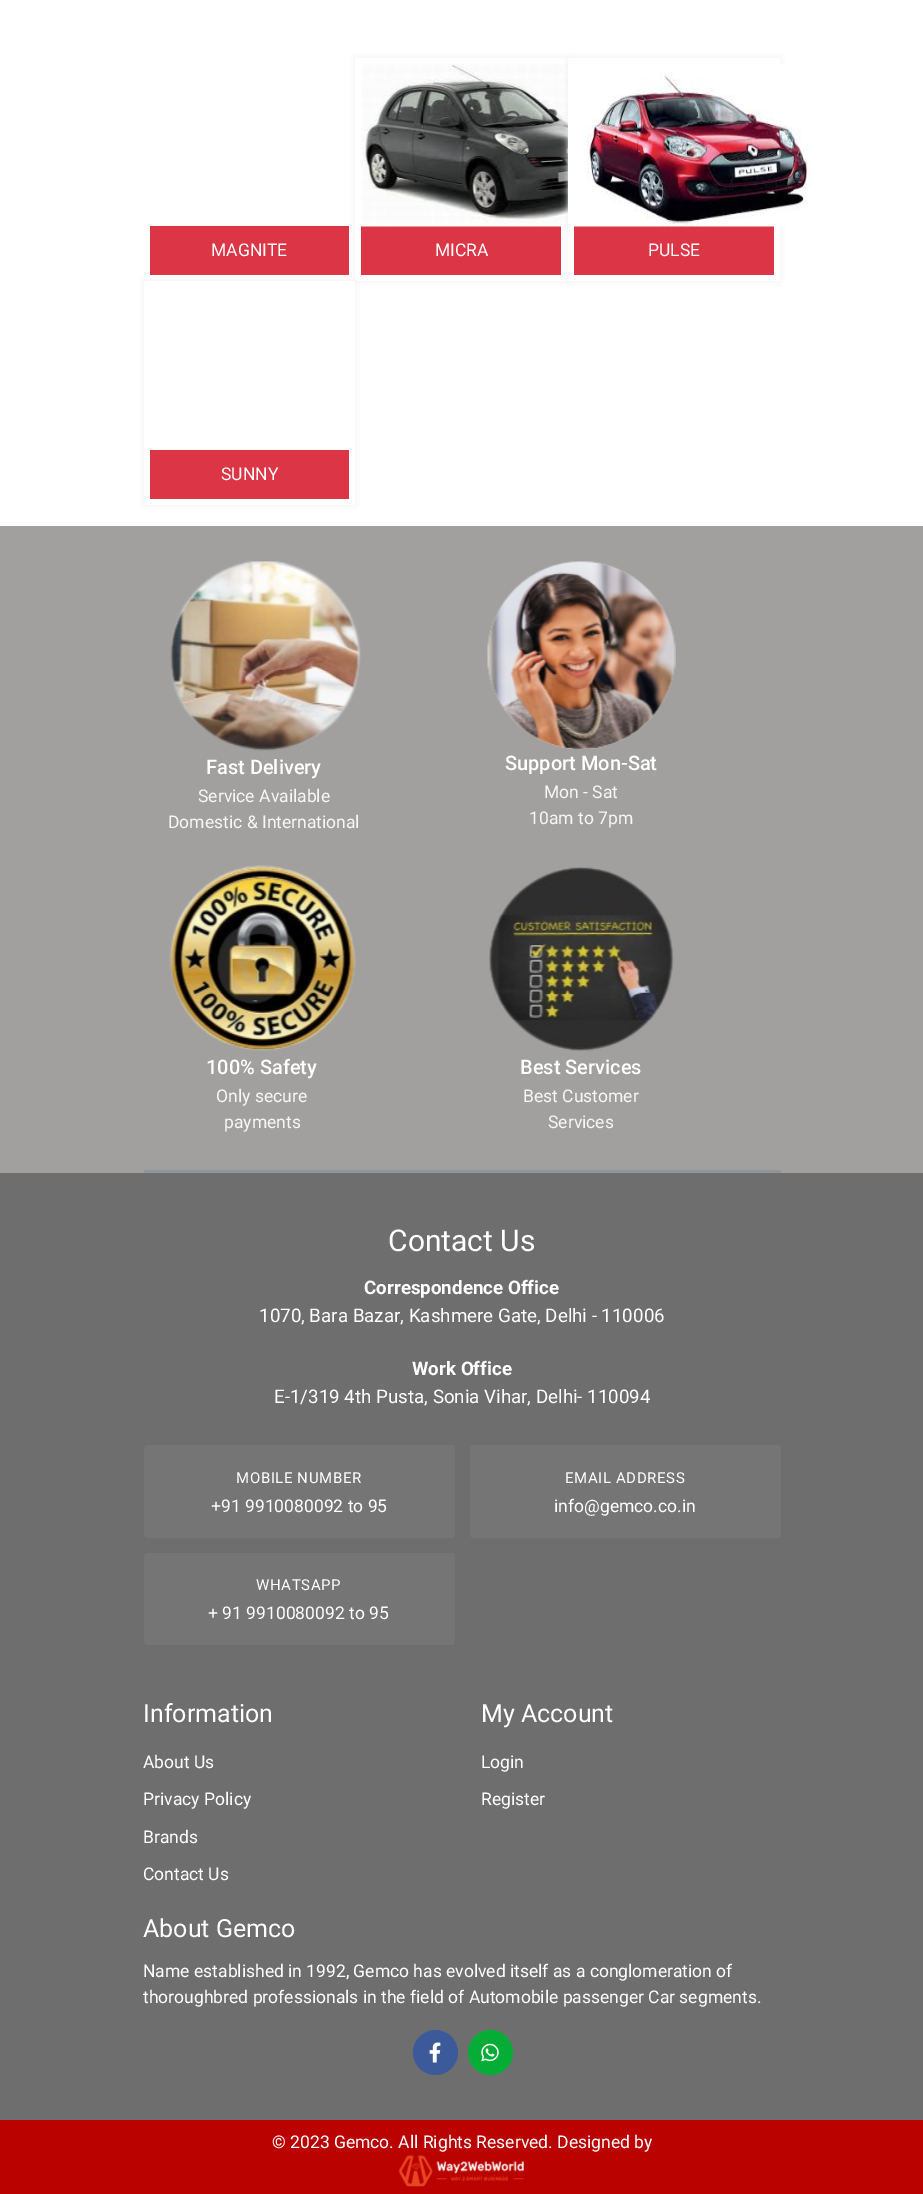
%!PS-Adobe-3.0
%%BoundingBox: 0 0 923 2194
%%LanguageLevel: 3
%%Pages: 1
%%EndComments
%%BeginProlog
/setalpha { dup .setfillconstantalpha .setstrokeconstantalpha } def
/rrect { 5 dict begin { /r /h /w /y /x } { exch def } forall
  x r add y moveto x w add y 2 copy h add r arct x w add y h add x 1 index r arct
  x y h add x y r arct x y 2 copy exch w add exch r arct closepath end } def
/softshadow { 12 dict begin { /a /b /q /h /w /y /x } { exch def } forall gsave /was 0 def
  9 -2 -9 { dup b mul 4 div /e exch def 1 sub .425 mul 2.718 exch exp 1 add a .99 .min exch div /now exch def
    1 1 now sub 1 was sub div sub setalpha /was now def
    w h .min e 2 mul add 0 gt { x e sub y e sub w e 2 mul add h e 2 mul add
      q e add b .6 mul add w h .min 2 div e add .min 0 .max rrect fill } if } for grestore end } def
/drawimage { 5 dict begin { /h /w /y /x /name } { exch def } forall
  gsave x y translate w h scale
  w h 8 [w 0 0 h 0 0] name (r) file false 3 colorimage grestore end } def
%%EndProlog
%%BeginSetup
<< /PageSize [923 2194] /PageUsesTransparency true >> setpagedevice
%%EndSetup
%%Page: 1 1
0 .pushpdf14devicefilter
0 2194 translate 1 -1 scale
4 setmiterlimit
1 setgray
0 0 923 2194 rectfill
0.863 0.208 0.271 setrgbcolor
150 226 199 49 rectfill
0.933 setgray
355 58 213 223 0 3 1 softshadow
1 setgray
355 58 213 223 rectfill
0.863 0.208 0.271 setrgbcolor
361 226 200 49 rectfill
(images/1.raw) 361 64 207 163 drawimage
0.933 setgray
568 58 212 223 0 3 1 softshadow
1 setgray
568 58 212 223 rectfill
0.863 0.208 0.271 setrgbcolor
574 226 200 49 rectfill
(images/2.raw) 574 64 238 163 drawimage
0.933 setgray
144 281 211 224 0 3 1 softshadow
1 setgray
144 281 211 224 rectfill
0.863 0.208 0.271 setrgbcolor
150 450 199 49 rectfill
0.631 0.627 0.624 setrgbcolor
0 526 923 647 rectfill
0.573 0.58 0.608 setrgbcolor
144 1170 637 3 rectfill
(images/3.raw) 170 561 191 190 drawimage
(images/4.raw) 487 561 189 188 drawimage
(images/5.raw) 169 865 187 186 drawimage
(images/6.raw) 489 867 185 184 drawimage
0.431 setgray
0 1173 923 947 rectfill
0.459 setgray
144 1445 311 93 4 rrect fill
470 1445 311 93 4 rrect fill
144 1553 311 92 4 rrect fill
0.235 0.353 0.6 setrgbcolor
newpath 435.5 2052.5 22.5 0 360 arc closepath fill
(images/7.raw) 429 2042 12 21 drawimage
0.02 0.678 0.212 setrgbcolor
newpath 490.5 2052.5 22.5 0 360 arc closepath fill
(images/8.raw) 481 2043 18 19 drawimage
0.729 0.008 0 setrgbcolor
0 2120 923 74 rectfill
(images/9.raw) 398 2155 126 32 drawimage
/Roboto-Regular [17.5 0 0 -17.5 0 0] selectfont
1 setgray
211 256 moveto (MAGNITE) show
435 256 moveto (MICRA) show
648 256 moveto (PULSE) show
221 480 moveto (SUNNY) show
/Roboto-Medium [20 0 0 -20 0 0] selectfont
206 774 moveto (Fast Delivery) show
/Roboto-Regular [17.5 0 0 -17.5 0 0] selectfont
0.969 setgray
198 802 moveto (Service Available) show
168 828 moveto (Domestic & International) show
/Roboto-Medium [20 0 0 -20 0 0] selectfont
1 setgray
505 770 moveto (Support Mon-Sat) show
/Roboto-Regular [17.5 0 0 -17.5 0 0] selectfont
0.969 setgray
544 798 moveto (Mon - Sat) show
529 824 moveto (10am to 7pm) show
/Roboto-Medium [20 0 0 -20 0 0] selectfont
1 setgray
206 1074 moveto (100% Safety) show
/Roboto-Regular [17.5 0 0 -17.5 0 0] selectfont
0.969 setgray
216 1102 moveto (Only secure) show
224 1128 moveto (payments) show
/Roboto-Medium [20 0 0 -20 0 0] selectfont
1 setgray
520 1074 moveto (Best Services) show
/Roboto-Regular [17.5 0 0 -17.5 0 0] selectfont
0.969 setgray
523 1102 moveto (Best Customer) show
548 1128 moveto (Services) show
/Roboto-Regular [30 0 0 -30 0 0] selectfont
1 setgray
388 1251 moveto (Contact Us) show
/Roboto-Bold [18.75 0 0 -18.75 0 0] selectfont
364 1294 moveto (Correspondence Office) show
/Roboto-Regular [18.75 0 0 -18.75 0 0] selectfont
259 1322 moveto (1070, Bara Bazar, Kashmere Gate, Delhi - 110006) show
/Roboto-Bold [18.75 0 0 -18.75 0 0] selectfont
412 1375 moveto (Work Office) show
/Roboto-Regular [18.75 0 0 -18.75 0 0] selectfont
274 1403 moveto (E-1/319 4th Pusta, Sonia Vihar, Delhi- 110094) show
/Roboto-Regular [15 0 0 -15 0 0] selectfont
236 1483 moveto 0.6 0 (MOBILE NUMBER) ashow
/Roboto-Regular [17.5 0 0 -17.5 0 0] selectfont
211 1512 moveto (+91 9910080092 to 95) show
/Roboto-Regular [15 0 0 -15 0 0] selectfont
565 1483 moveto 0.6 0 (EMAIL ADDRESS) ashow
/Roboto-Regular [17.5 0 0 -17.5 0 0] selectfont
554 1512 moveto (info@gemco.co.in) show
/Roboto-Regular [15 0 0 -15 0 0] selectfont
256 1590 moveto 0.6 0 (WHATSAPP) ashow
/Roboto-Regular [17.5 0 0 -17.5 0 0] selectfont
208 1619 moveto (+ 91 9910080092 to 95) show
/Roboto-Regular [25 0 0 -25 0 0] selectfont
143 1722 moveto (Information) show
/Roboto-Regular [17.5 0 0 -17.5 0 0] selectfont
143 1768 moveto (About Us) show
143 1805 moveto (Privacy Policy) show
143 1843 moveto (Brands) show
143 1880 moveto (Contact Us) show
/Roboto-Regular [25 0 0 -25 0 0] selectfont
481 1722 moveto (My Account) show
/Roboto-Regular [17.5 0 0 -17.5 0 0] selectfont
481 1768 moveto (Login) show
481 1805 moveto (Register) show
/Roboto-Regular [25 0 0 -25 0 0] selectfont
143 1937 moveto (About Gemco) show
/Roboto-Regular [17.5 0 0 -17.5 0 0] selectfont
143 1977 moveto (Name established in 1992, Gemco has evolved itself as a conglomeration of) show
143 2003 moveto (thoroughbred professionals in the field of Automobile passenger Car segments.) show
272 2148 moveto (© 2023 Gemco. All Rights Reserved. Designed by) show
.poppdf14devicefilter showpage
%%EOF
